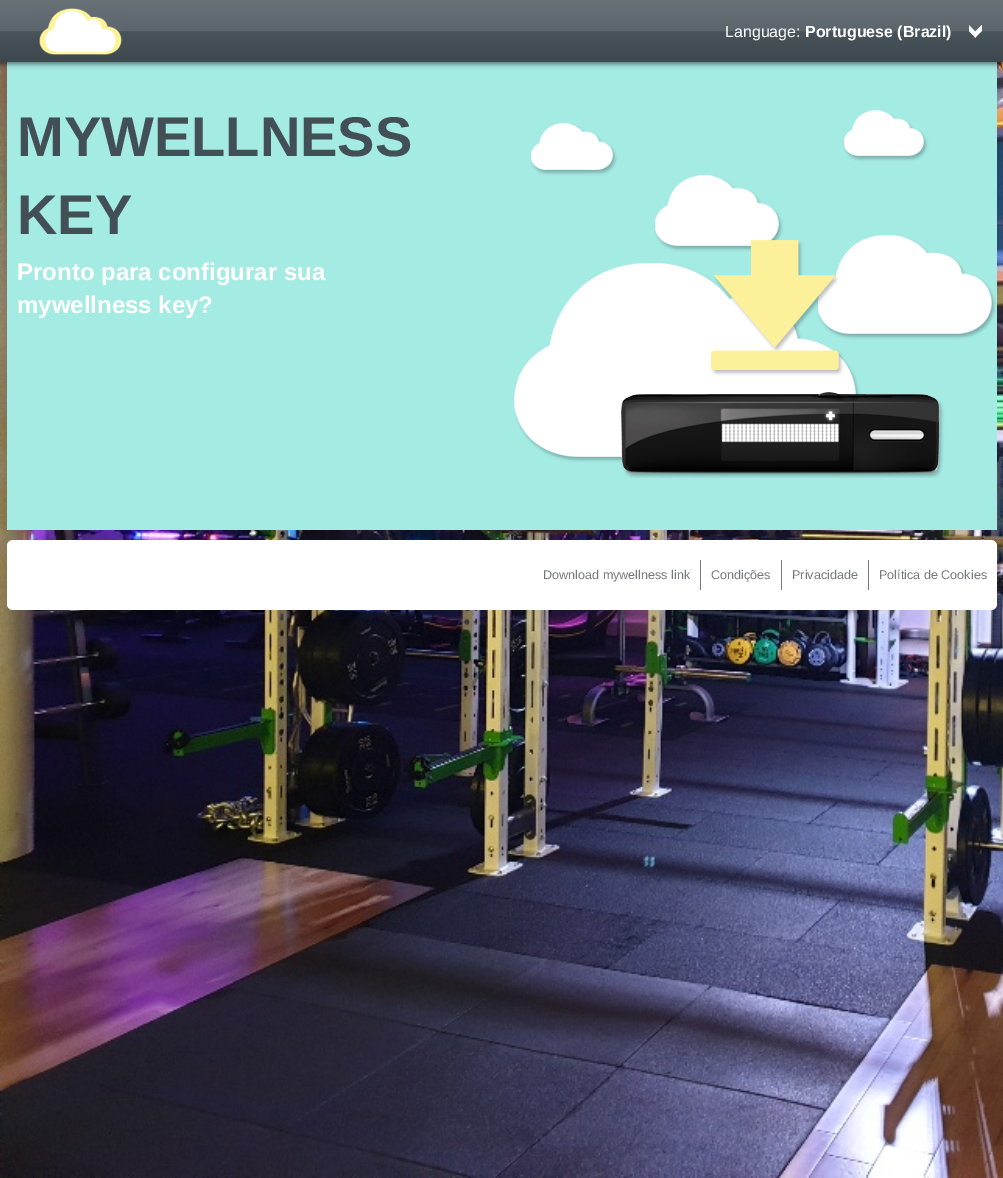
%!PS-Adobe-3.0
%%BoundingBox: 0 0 1003 1178
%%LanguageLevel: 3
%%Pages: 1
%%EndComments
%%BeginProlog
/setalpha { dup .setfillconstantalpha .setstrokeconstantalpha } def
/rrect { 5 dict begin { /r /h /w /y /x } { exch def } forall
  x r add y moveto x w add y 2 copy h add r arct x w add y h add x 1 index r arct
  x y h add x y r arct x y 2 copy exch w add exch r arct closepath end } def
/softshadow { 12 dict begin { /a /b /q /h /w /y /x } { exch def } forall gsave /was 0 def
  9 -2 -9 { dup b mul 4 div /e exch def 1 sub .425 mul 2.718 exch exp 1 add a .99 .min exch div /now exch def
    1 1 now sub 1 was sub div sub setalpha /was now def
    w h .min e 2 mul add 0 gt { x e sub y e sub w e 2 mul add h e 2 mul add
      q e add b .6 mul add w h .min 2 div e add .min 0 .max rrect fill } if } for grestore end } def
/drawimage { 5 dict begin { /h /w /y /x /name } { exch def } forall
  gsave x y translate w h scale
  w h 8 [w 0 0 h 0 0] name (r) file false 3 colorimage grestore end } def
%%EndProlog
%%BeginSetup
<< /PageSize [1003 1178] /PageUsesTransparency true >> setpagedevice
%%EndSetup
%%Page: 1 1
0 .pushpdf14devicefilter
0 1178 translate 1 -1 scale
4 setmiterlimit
1 setgray
0 0 1003 1178 rectfill
(images/1.raw) 0 62 1003 1116 drawimage
0.643 0.922 0.894 setrgbcolor
7 62 990 468 rectfill
0 setgray
0 2 1003 62 0 2.5 0.5 softshadow
gsave newpath 0 0 moveto 1003 0 lineto 1003 62 lineto 0 62 lineto closepath clip newpath
<< /ShadingType 2 /ColorSpace /DeviceRGB /Coords [502 0 502 62] /Extend [true true] /Function << /FunctionType 3 /Domain [0 1] /Functions [<< /FunctionType 2 /Domain [0 1] /C0 [0.404 0.443 0.463] /C1 [0.361 0.396 0.424] /N 1 >> << /FunctionType 2 /Domain [0 1] /C0 [0.361 0.396 0.424] /C1 [0.286 0.329 0.353] /N 1 >> << /FunctionType 2 /Domain [0 1] /C0 [0.286 0.329 0.353] /C1 [0.239 0.282 0.306] /N 1 >>] /Bounds [0.5 0.51] /Encode [0 1 0 1 0 1] >> >> shfill grestore
(images/2.raw) 39 8 83 47 drawimage
(images/3.raw) 969 25 13 13 drawimage
(images/4.raw) 514 110 482 368 drawimage
1 setgray
7 540 990 70 6 rrect fill
0.463 0.475 0.486 setrgbcolor
700 560 1 30 rectfill
781 560 1 30 rectfill
868 560 1 30 rectfill
/LiberationSans-Regular [16 0 0 -16 0 0] selectfont
1 setgray
725 37 moveto (Language:) show
/LiberationSans-Bold [16 0 0 -16 0 0] selectfont
805 37 moveto (Portuguese \(Brazil\)) show
/LiberationSans-Bold [56 0 0 -56 0 0] selectfont
0.263 0.31 0.337 setrgbcolor
17 156 moveto (MYWELLNESS) show
17 234 moveto (KEY) show
/LiberationSans-Bold [24 0 0 -24 0 0] selectfont
1 setgray
17 280 moveto (Pronto para configurar sua) show
17 313 moveto (mywellness key?) show
/LiberationSans-Regular [12.6 0 0 -12.6 0 0] selectfont
0.463 0.475 0.486 setrgbcolor
543 579 moveto (Download mywellness link) show
711 579 moveto (Condições) show
792 579 moveto (Privacidade) show
879 579 moveto (Política de Cookies) show
.poppdf14devicefilter showpage
%%EOF
